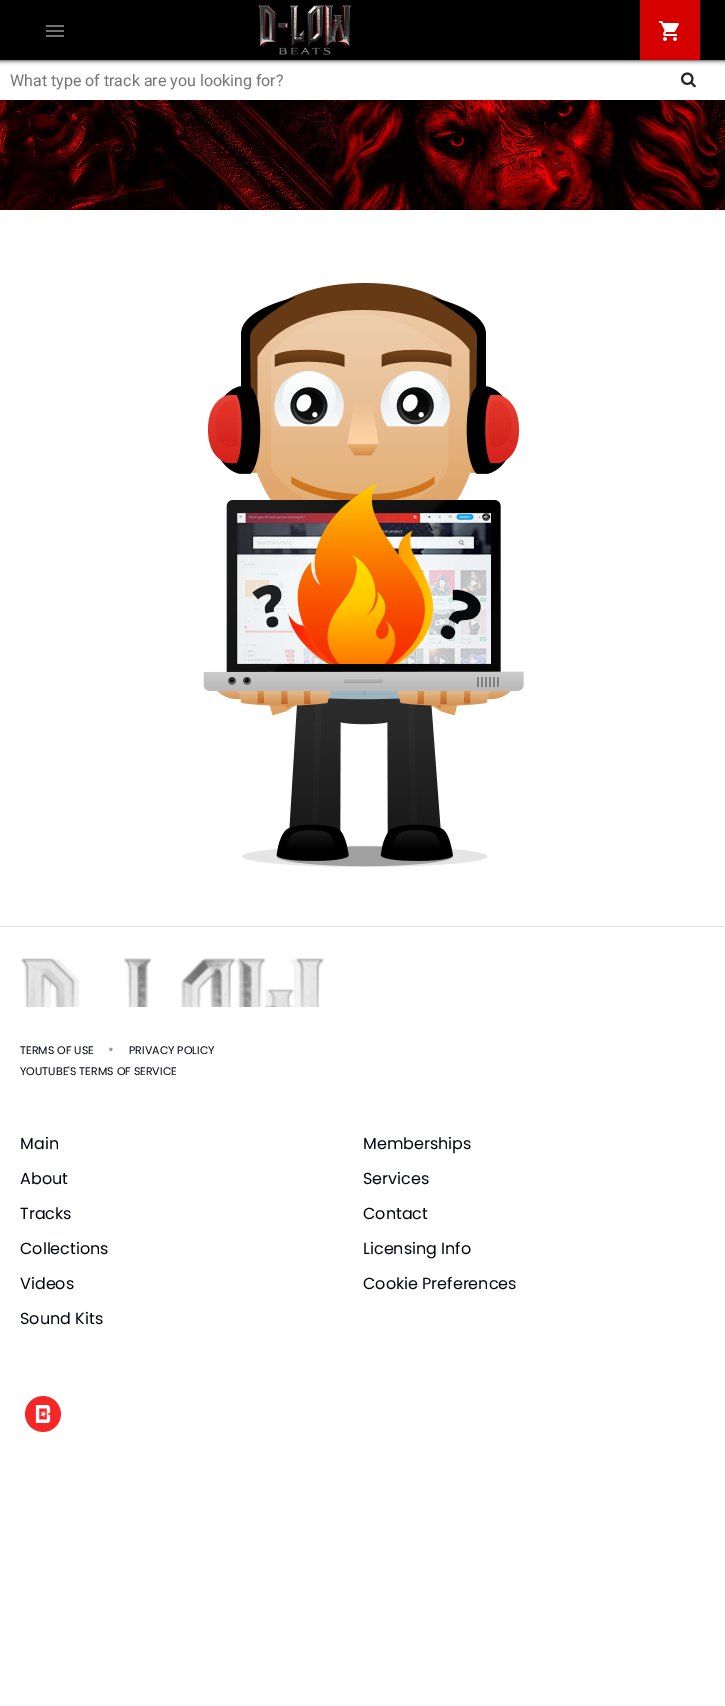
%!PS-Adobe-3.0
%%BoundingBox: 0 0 725 1706
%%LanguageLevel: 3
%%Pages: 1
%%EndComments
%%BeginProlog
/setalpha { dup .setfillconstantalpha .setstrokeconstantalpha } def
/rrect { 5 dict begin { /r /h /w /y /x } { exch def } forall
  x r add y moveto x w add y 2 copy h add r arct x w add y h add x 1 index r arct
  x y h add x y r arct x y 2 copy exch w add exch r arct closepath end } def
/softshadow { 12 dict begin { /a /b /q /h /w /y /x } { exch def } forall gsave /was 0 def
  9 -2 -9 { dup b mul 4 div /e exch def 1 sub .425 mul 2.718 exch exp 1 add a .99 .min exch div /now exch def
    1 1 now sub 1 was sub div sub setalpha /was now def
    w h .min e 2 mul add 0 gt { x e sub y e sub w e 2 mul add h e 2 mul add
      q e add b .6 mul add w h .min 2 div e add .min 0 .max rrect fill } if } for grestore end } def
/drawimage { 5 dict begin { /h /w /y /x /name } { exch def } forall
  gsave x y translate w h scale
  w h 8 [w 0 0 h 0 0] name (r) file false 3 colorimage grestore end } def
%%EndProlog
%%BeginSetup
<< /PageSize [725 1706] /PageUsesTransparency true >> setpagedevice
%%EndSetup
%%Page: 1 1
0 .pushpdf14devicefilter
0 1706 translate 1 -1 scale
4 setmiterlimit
1 setgray
0 0 725 1706 rectfill
0 setgray
0 0 725 60 0 2.5 1 softshadow
0 0 725 60 rectfill
(images/1.raw) 46 25 18 12 drawimage
(images/2.raw) 258 5 93 50 drawimage
0.835 0 0 setrgbcolor
640 0 60 60 rectfill
(images/3.raw) 659 21 20 20 drawimage
(images/4.raw) 681 72 15 16 drawimage
(images/5.raw) 0 100 725 110 drawimage
(images/6.raw) 203 283 321 584 drawimage
0.878 setgray
0 926 725 1 rectfill
(images/7.raw) 21 958 303 49 drawimage
(images/8.raw) 25 1396 36 36 drawimage
/Roboto-Regular [16 0 0 -16 0 0] selectfont
0.459 setgray
10 86 moveto (What type of track are you looking for?) show
/Poppins-Regular [11 0 0 -11 0 0] selectfont
0.008 0.02 0.055 setrgbcolor
20 1054 moveto (TERMS OF USE) show
/Poppins-Regular [14 0 0 -14 0 0] selectfont
0.6 setgray
108 1054 moveto (•) show
/Poppins-Regular [11 0 0 -11 0 0] selectfont
0.008 0.02 0.055 setrgbcolor
129 1054 moveto (PRIVACY POLICY) show
20 1075 moveto (YOUTUBE'S TERMS OF SERVICE) show
/Poppins-Regular [16 0 0 -16 0 0] selectfont
20 1149 moveto (Main) show
20 1184 moveto (About) show
20 1219 moveto (Tracks) show
20 1254 moveto (Collections) show
20 1289 moveto (Videos) show
20 1324 moveto (Sound Kits) show
363 1149 moveto (Memberships) show
363 1184 moveto (Services) show
363 1219 moveto (Contact) show
363 1254 moveto (Licensing Info) show
363 1289 moveto (Cookie Preferences) show
.poppdf14devicefilter showpage
%%EOF
